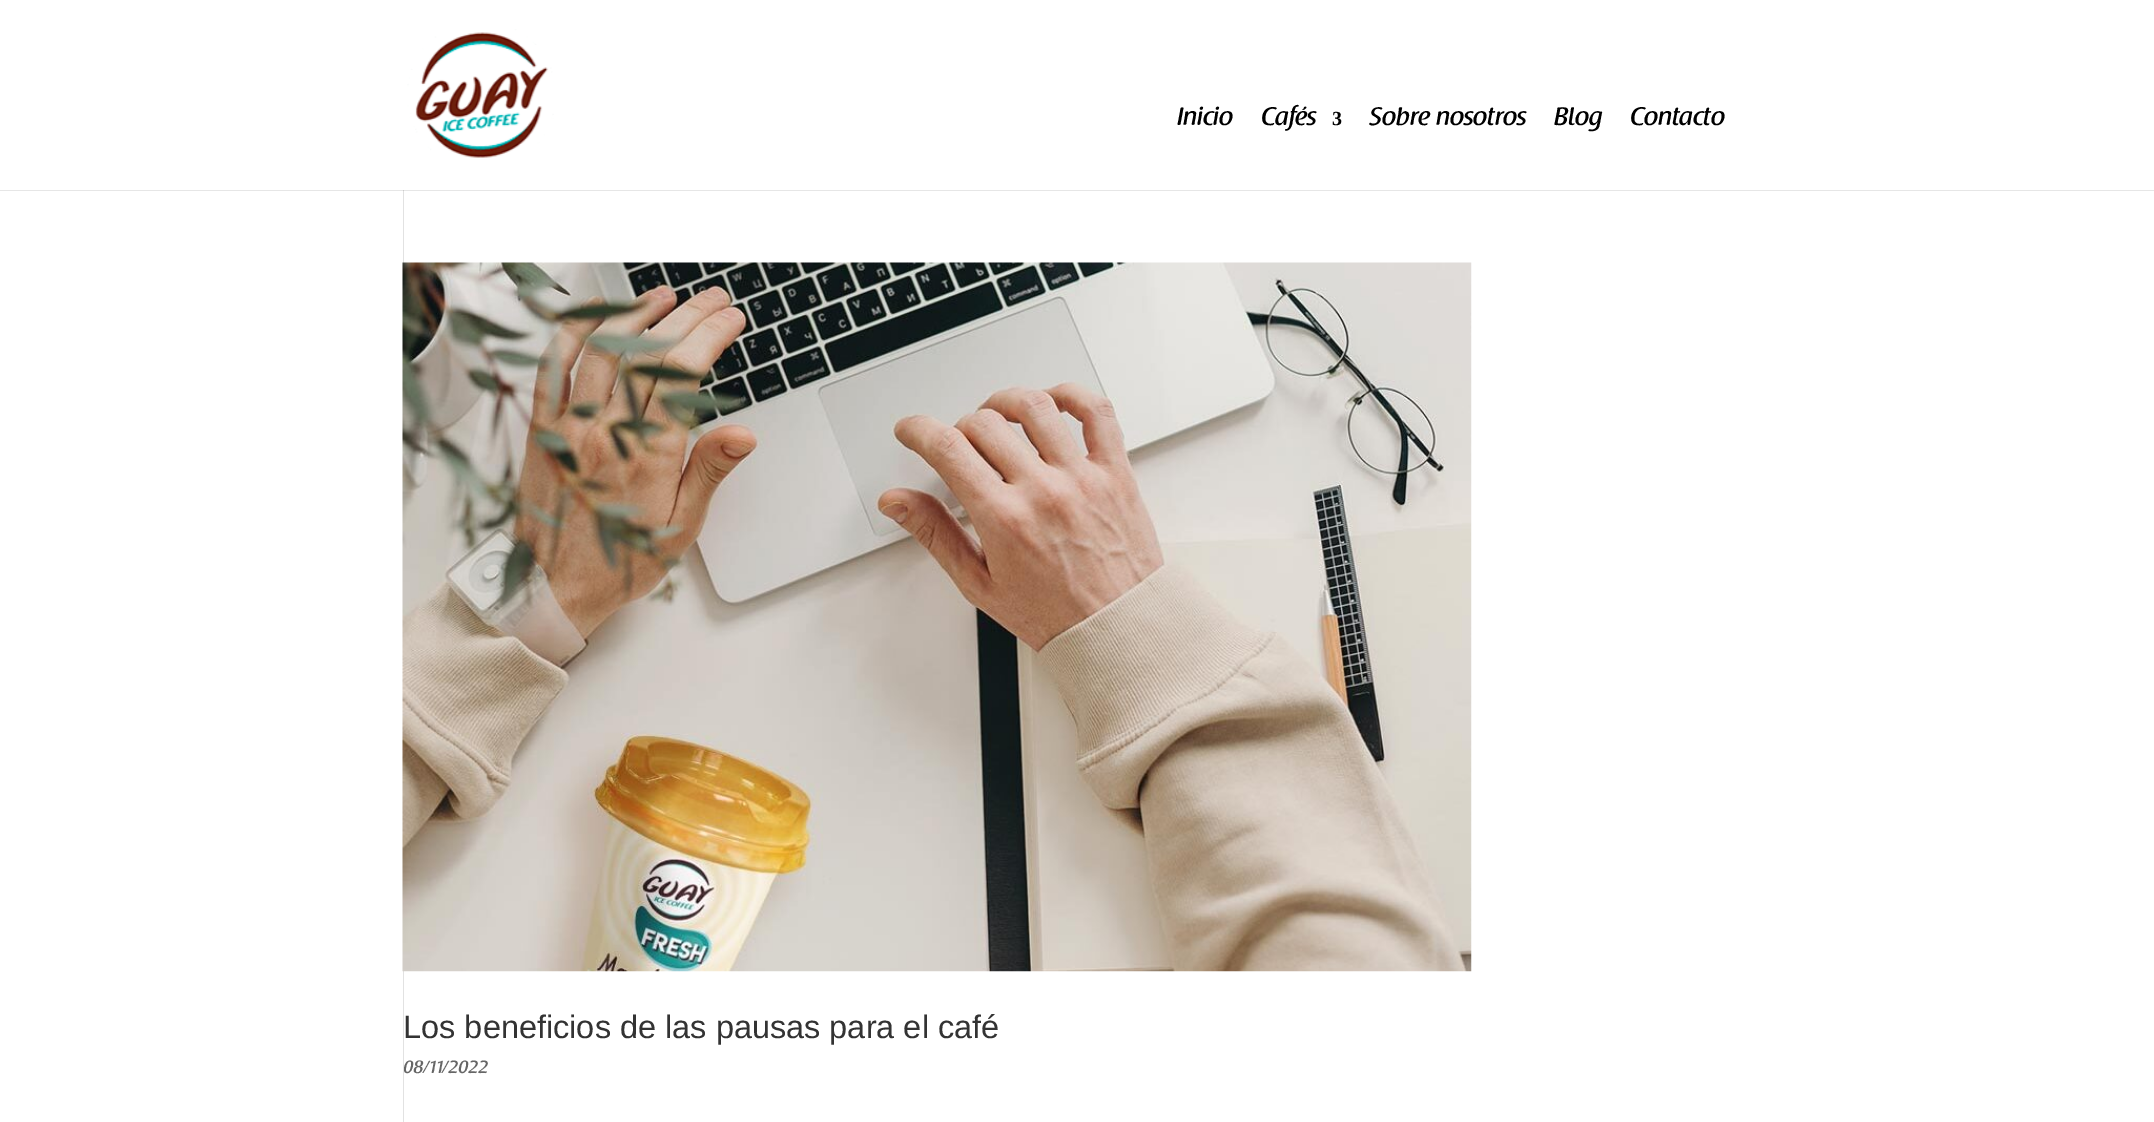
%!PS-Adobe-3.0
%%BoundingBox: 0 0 2154 1122
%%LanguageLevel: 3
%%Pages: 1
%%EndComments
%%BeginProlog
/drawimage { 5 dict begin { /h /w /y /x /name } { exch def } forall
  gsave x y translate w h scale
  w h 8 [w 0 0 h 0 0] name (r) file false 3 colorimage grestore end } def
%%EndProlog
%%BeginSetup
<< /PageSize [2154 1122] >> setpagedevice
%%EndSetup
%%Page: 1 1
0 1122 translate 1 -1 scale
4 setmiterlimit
1 setgray
0 0 2154 1122 rectfill
(images/1.raw) 407 29 147 129 drawimage
0.902 setgray
0 190 2154 1 rectfill
/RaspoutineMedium-MediumItalic [25 0 0 -25 0 0] selectfont
0 setgray
1177 125 moveto (Inicio) show
1261 125 moveto (Cafés) show
/LiberationSerif-Bold [20 0 0 -20 0 0] selectfont
1332 125 moveto (3) show
/RaspoutineMedium-MediumItalic [25 0 0 -25 0 0] selectfont
1369 125 moveto (Sobre nosotros) show
1554 125 moveto (Blog) show
1630 125 moveto (Contacto) show
/LiberationSans-Regular [32.5 0 0 -32.5 0 0] selectfont
0.2 setgray
403 1038 moveto (Los beneficios de las pausas para el café) show
/RaspoutineMedium-MediumItalic [17.5 0 0 -17.5 0 0] selectfont
0.4 setgray
403 1073 moveto (08/11/2022) show
0.886 setgray
403 190 1 932 rectfill
(images/2.raw) 402 262 1070 710 drawimage
0.796 setgray
403 190 1 1 rectfill
showpage
%%EOF
